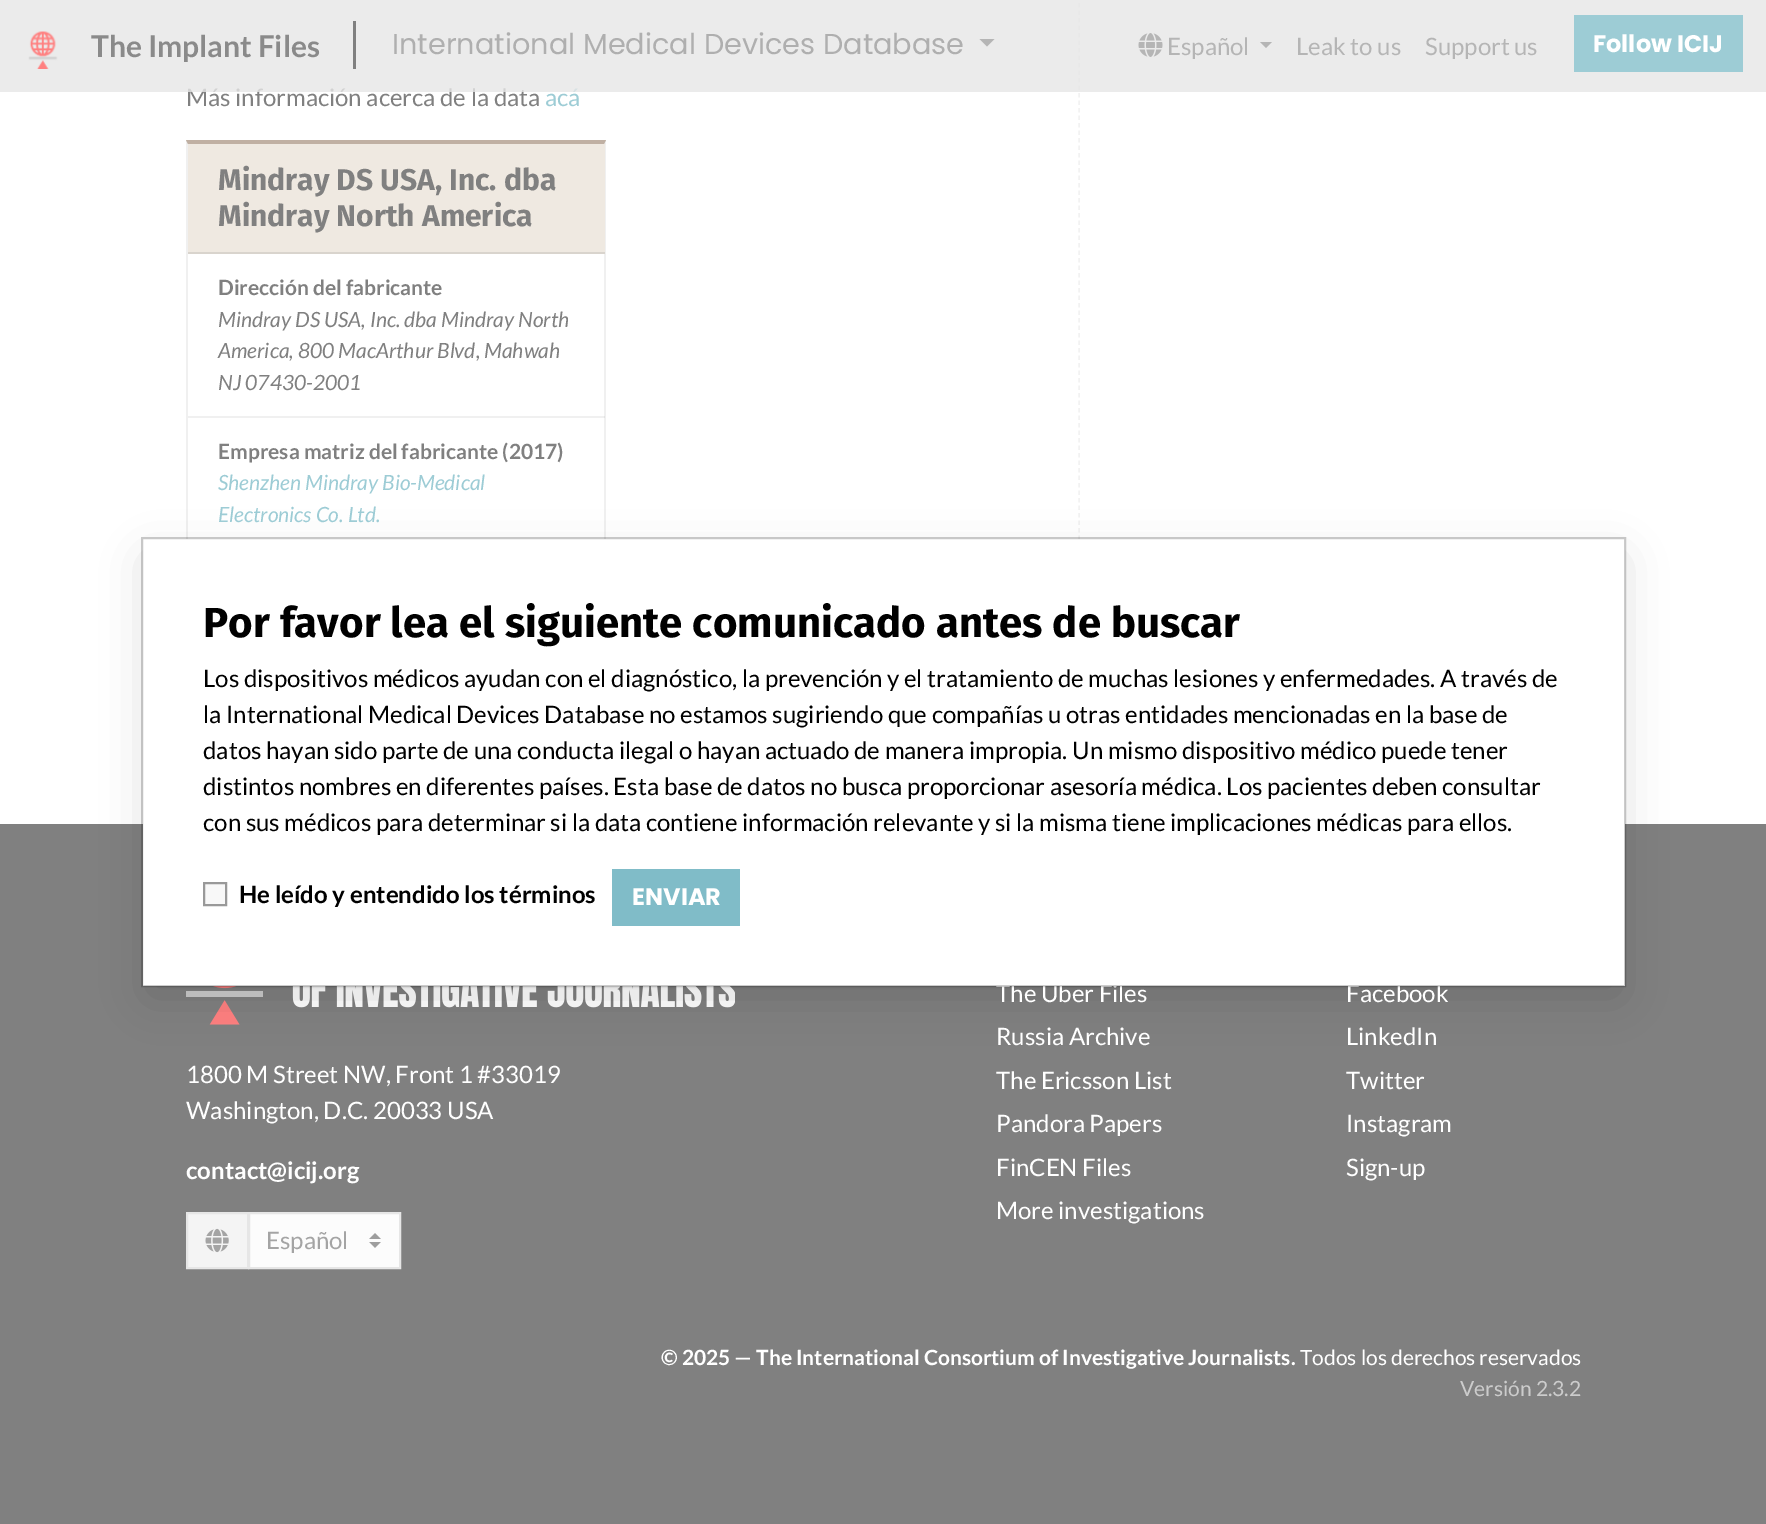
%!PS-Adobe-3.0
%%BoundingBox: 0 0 1766 1524
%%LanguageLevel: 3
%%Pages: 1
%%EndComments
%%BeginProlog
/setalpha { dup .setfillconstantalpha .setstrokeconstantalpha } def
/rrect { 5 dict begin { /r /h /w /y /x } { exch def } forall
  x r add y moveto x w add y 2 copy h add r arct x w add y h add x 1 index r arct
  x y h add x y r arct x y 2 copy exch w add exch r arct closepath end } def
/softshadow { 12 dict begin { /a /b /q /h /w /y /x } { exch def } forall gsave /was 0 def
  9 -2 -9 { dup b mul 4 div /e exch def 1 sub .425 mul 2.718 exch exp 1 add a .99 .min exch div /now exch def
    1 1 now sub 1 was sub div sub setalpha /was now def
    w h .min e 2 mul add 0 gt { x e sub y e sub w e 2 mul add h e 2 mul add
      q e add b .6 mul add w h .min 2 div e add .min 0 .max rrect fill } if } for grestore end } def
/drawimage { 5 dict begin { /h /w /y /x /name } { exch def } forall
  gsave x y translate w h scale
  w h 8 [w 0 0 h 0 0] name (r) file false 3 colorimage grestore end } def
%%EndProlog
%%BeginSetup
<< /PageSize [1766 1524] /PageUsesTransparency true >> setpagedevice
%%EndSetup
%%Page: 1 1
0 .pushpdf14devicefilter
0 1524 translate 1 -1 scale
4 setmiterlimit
1 setgray
0 0 1766 1524 rectfill
0.753 0.69 0.639 setrgbcolor
newpath 186 140 moveto 606 140 lineto 604 144 lineto 188 144 lineto closepath fill
0.12 setalpha
0.502 setgray
newpath 606 140 moveto 606 618 lineto 604 616 lineto 604 144 lineto closepath fill
newpath 186 618 moveto 186 140 lineto 188 144 lineto 188 616 lineto closepath fill
1 setalpha
0.937 0.914 0.882 setrgbcolor
188 144 417 108 rectfill
0.851 0.831 0.804 setrgbcolor
188 252 417 2 rectfill
0.12 setalpha
0.502 setgray
188 416 417 2 rectfill
1 setalpha
0.949 setgray
1.5 setlinewidth
[4.5 3] 0 setdash
newpath 1079 -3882 moveto 1079 715.5 lineto stroke
0.502 setgray
0 824 1766 700 rectfill
(images/3.raw) 186 986 549 39 drawimage
0.957 setgray
newpath 187 1213 moveto 248 1213 lineto 248 1268 lineto 187 1268 lineto closepath gsave fill grestore
0.902 setgray
2 setlinewidth
[] 0 setdash
stroke
(images/4.raw) 205 1228 24 25 drawimage
0.988 setgray
250 1214 149 53 rectfill
(images/5.raw) 369 1233 12 15 drawimage
0.902 setgray
249 1213 151 55 rectstroke
0 setgray
149 560 1470 435 0 22.5 0.15 softshadow
1 setgray
143 539 1482 447 rectfill
/Lato-Regular [24 0 0 -24 0 0] selectfont
0.502 setgray
186 106 moveto (Más información acerca de la data) show
0.616 0.8 0.835 setrgbcolor
545 106 moveto (acá) show
0.8 setalpha
0.902 setgray
0 0 1766 92 rectfill
1 setalpha
(images/2.raw) 1138 33 25 24 drawimage
0.71 setgray
newpath 1260 42 moveto 1272 42 lineto 1266 48 lineto closepath fill
1167 55 moveto (Español) show
newpath 979.5 39 moveto 994.5 39 lineto 987 46.5 lineto closepath fill
/Poppins-Regular [28.75 0 0 -28.75 0 0] selectfont
0.686 setgray
392 54 moveto (International Medical Devices Database) show
0.502 setgray
353 21 3 48 rectfill
/Lato-Bold [30 0 0 -30 0 0] selectfont
0.541 setgray
91 57 moveto (The Implant Files) show
(images/1.raw) 28 31 30 38 drawimage
0.616 0.8 0.835 setrgbcolor
1574 15 169 57 rectfill
/Poppins-Bold [24 0 0 -24 0 0] selectfont
1 setgray
1593 52 moveto (Follow ICIJ) show
/Lato-Regular [24 0 0 -24 0 0] selectfont
0.71 setgray
1425 55 moveto (Support us) show
1296 55 moveto (Leak to us) show
/FiraSans-Bold [30 0 0 -30 0 0] selectfont
0.502 setgray
218 190 moveto (Mindray DS USA, Inc. dba) show
218 226 moveto (Mindray North America) show
/Lato-Bold [21 0 0 -21 0 0] selectfont
218 295 moveto (Dirección del fabricante) show
/Lato-Italic [21 0 0 -21 0 0] selectfont
218 327 moveto (Mindray DS USA, Inc. dba Mindray North) show
218 358 moveto (America, 800 MacArthur Blvd, Mahwah) show
218 390 moveto (NJ 07430-2001) show
/Lato-Bold [21 0 0 -21 0 0] selectfont
218 459 moveto (Empresa matriz del fabricante \(2017\)) show
/Lato-Italic [21 0 0 -21 0 0] selectfont
0.616 0.8 0.835 setrgbcolor
218 490 moveto (Shenzhen Mindray Bio-Medical) show
218 522 moveto (Electronics Co. Ltd.) show
/Lato-Regular [24 0 0 -24 0 0] selectfont
1 setgray
186 1083 moveto (1800 M Street NW, Front 1 #33019) show
186 1119 moveto (Washington, D.C. 20033 USA) show
/Lato-Bold [24 0 0 -24 0 0] selectfont
186 1179 moveto (contact@icij.org) show
/Lato-Regular [24 0 0 -24 0 0] selectfont
0.643 setgray
266 1249 moveto (Español) show
1 setgray
996 1002 moveto (The Uber Files) show
996 1045 moveto (Russia Archive) show
996 1089 moveto (The Ericsson List) show
996 1132 moveto (Pandora Papers) show
996 1176 moveto (FinCEN Files) show
996 1219 moveto (More investigations) show
1346 1002 moveto (Facebook) show
1346 1045 moveto (LinkedIn) show
1346 1089 moveto (Twitter) show
1346 1132 moveto (Instagram) show
1346 1176 moveto (Sign-up) show
/Lato-Bold [21 0 0 -21 0 0] selectfont
661 1365 moveto (© 2025 — The International Consortium of Investigative Journalists.) show
/Lato-Regular [21 0 0 -21 0 0] selectfont
1300 1365 moveto (Todos los derechos reservados) show
0.8 setgray
1460 1396 moveto (Versión 2.3.2) show
0.2 setalpha
0 setgray
142 538 1483 448 rectstroke
/FiraSans-Bold [42 0 0 -42 0 0] selectfont
1 setalpha
203 637 moveto (Por favor lea el siguiente comunicado antes de buscar) show
/Lato-Regular [24 0 0 -24 0 0] selectfont
203 687 moveto (Los dispositivos médicos ayudan con el diagnóstico, la prevención y el tratamiento de muchas lesiones y enfermedades. A través de) show
203 723 moveto (la International Medical Devices Database no estamos sugiriendo que compañías u otras entidades mencionadas en la base de) show
203 759 moveto (datos hayan sido parte de una conducta ilegal o hayan actuado de manera impropia. Un mismo dispositivo médico puede tener) show
203 795 moveto (distintos nombres en diferentes países. Esta base de datos no busca proporcionar asesoría médica. Los pacientes deben consultar) show
203 831 moveto (con sus médicos para determinar si la data contiene información relevante y si la misma tiene implicaciones médicas para ellos.) show
0.973 setgray
newpath 204 883 moveto 226 883 lineto 226 905 lineto 204 905 lineto closepath gsave fill grestore
0.6 setgray
stroke
/Lato-Bold [24 0 0 -24 0 0] selectfont
0 setgray
239 903 moveto (He leído y entendido los términos) show
0.502 0.737 0.784 setrgbcolor
612 869 128 57 rectfill
/Poppins-Bold [24 0 0 -24 0 0] selectfont
1 setgray
632 905 moveto (ENVIAR) show
.poppdf14devicefilter showpage
%%EOF
